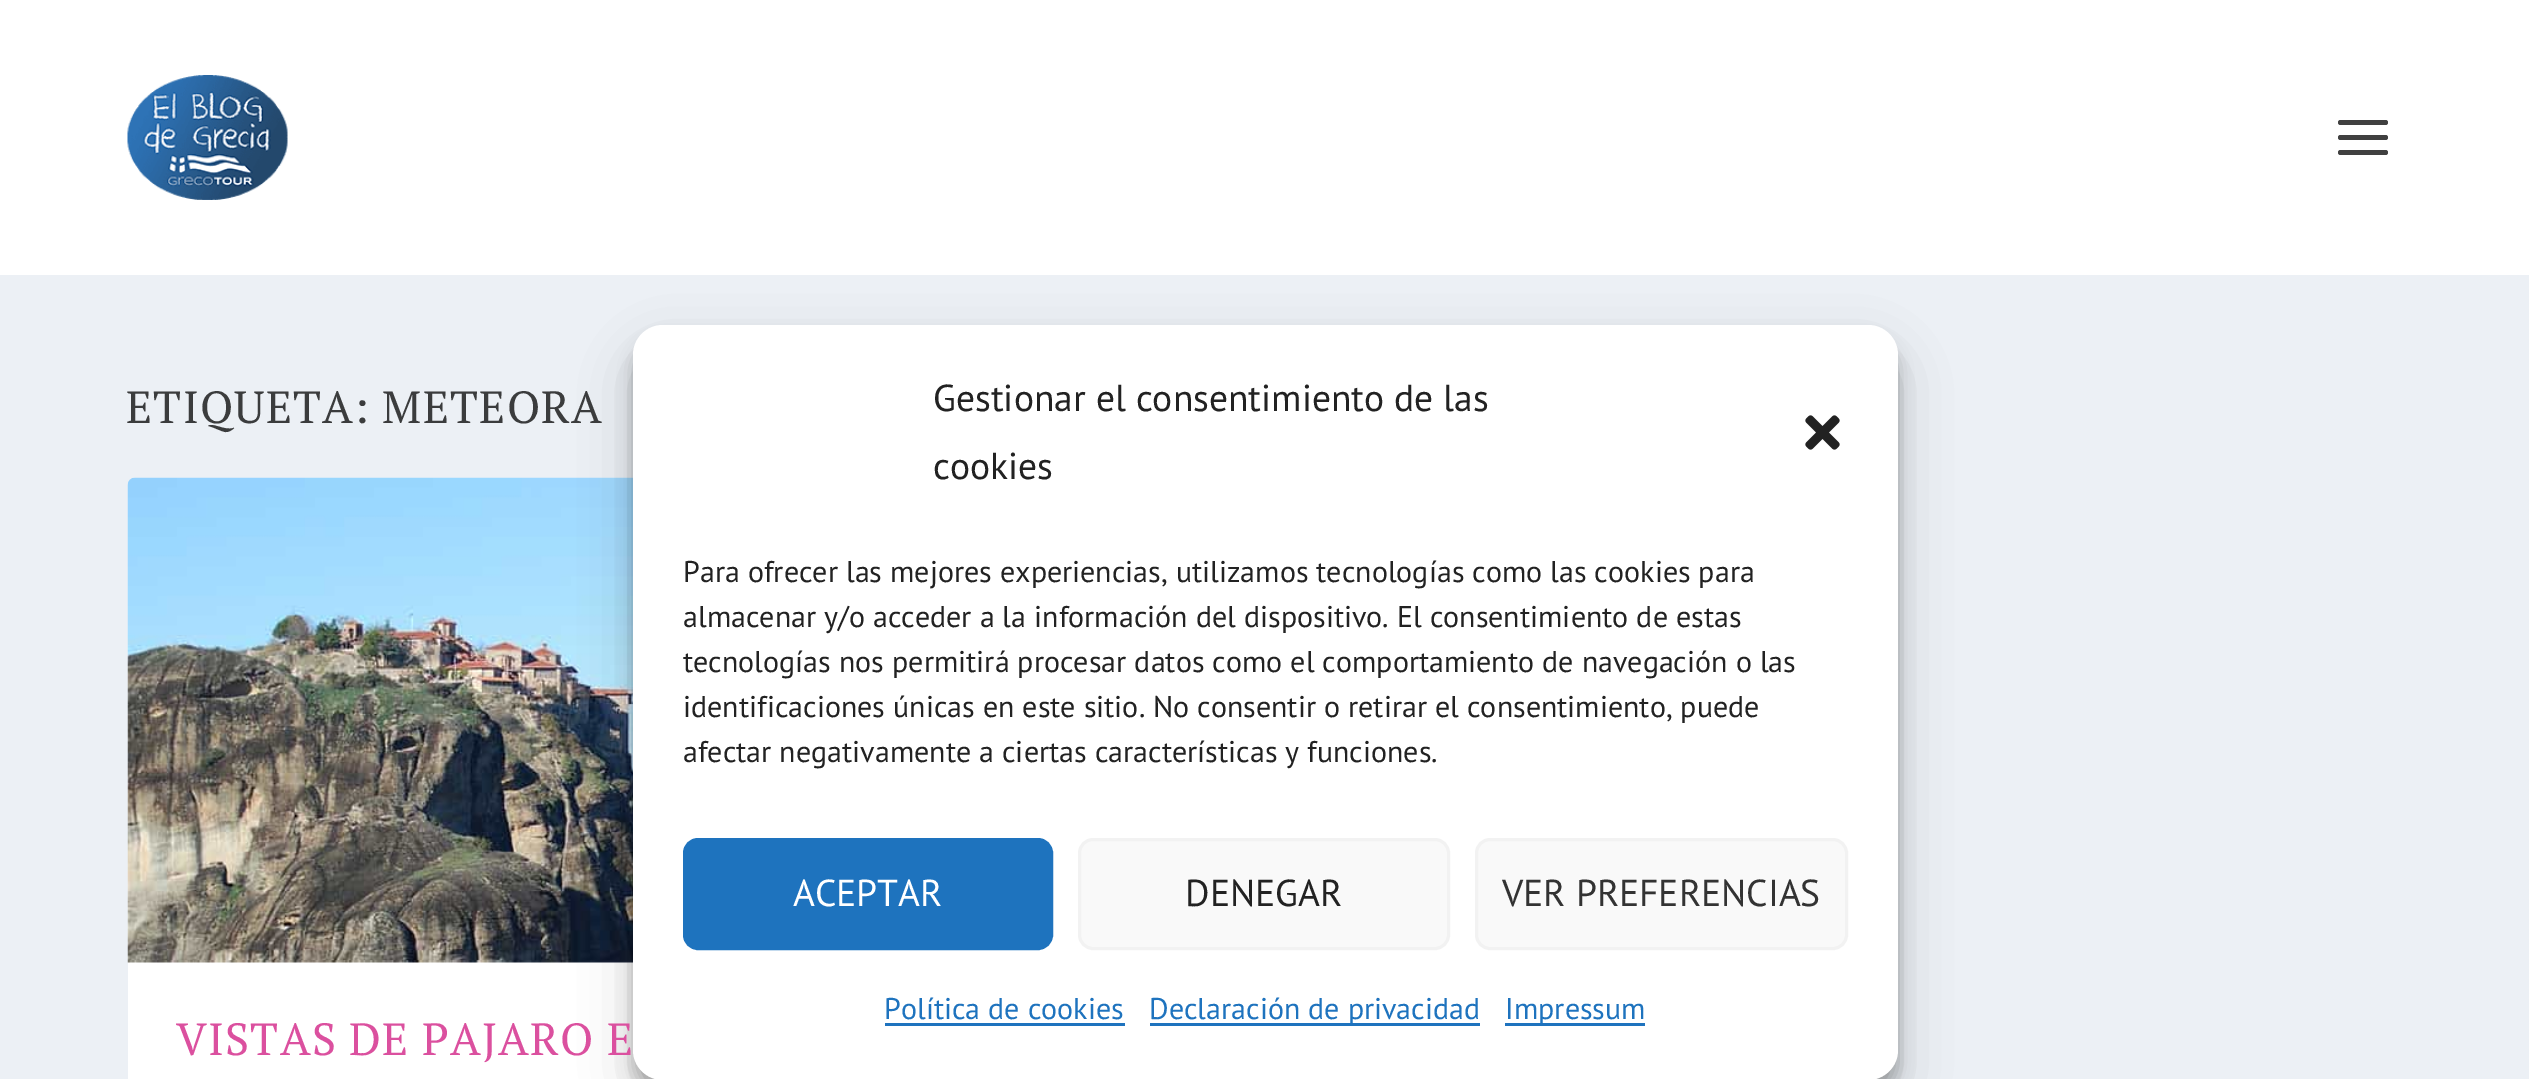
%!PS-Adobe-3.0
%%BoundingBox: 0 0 2529 1079
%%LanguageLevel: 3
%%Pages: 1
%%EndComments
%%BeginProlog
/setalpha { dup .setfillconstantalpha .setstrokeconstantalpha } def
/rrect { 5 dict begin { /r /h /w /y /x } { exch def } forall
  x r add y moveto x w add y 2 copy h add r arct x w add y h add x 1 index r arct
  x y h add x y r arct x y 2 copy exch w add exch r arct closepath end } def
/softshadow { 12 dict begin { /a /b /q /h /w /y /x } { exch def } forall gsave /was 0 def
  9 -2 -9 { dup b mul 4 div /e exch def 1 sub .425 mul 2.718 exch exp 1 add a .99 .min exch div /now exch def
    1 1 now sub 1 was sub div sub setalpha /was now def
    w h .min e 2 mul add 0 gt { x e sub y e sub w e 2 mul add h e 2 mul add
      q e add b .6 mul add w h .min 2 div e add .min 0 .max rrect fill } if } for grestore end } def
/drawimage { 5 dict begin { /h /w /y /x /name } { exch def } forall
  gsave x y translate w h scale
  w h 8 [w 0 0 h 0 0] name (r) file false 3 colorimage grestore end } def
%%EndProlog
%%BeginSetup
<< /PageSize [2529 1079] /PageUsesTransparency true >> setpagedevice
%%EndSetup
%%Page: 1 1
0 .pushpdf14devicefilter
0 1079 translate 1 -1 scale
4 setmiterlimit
0.925 0.941 0.961 setrgbcolor
0 0 2529 1079 rectfill
1 setgray
0 0 2529 275 rectfill
(images/1.raw) 127 75 161 125 drawimage
0.251 setgray
2338 120 50 5 2.5 rrect fill
2338 135 50 5 2.5 rrect fill
2338 150 50 5 2.5 rrect fill
1 setgray
128 478 1107 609 8 rrect fill
(images/2.raw) 127 477 506 486 drawimage
0 setgray
633 340 1265 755 30 7.5 0.23 softshadow
633 350 1265 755 30 25 0.19 softshadow
1 setgray
633 325 1265 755 30 rrect fill
(images/3.raw) 1805 415 35 35 drawimage
0.118 0.451 0.745 setrgbcolor
684.5 839.5 367 109 13.5 rrect gsave fill grestore
3 setlinewidth
stroke
0.976 setgray
1079.5 839.5 369 109 13.5 rrect gsave fill grestore
0.949 setgray
stroke
0.976 setgray
1476.5 839.5 370 109 13.5 rrect gsave fill grestore
0.949 setgray
stroke
0.118 0.451 0.745 setrgbcolor
885 1023 240 3 rectfill
1150 1023 330 3 rectfill
1505 1023 140 3 rectfill
/PTSerif-Regular [45 0 0 -45 0 0] selectfont
0.231 0.235 0.239 setrgbcolor
126 423 moveto 1.25 0 (ETIQUETA: METEORA) ashow
0.859 0.314 0.624 setrgbcolor
176 1055 moveto 1.25 0 (VISTAS DE PAJARO E) ashow
/PTSans-Regular [37.5 0 0 -37.5 0 0] selectfont
0.133 setgray
933 411 moveto (Gestionar el consentimiento de las) show
933 479 moveto (cookies) show
/PTSans-Regular [30 0 0 -30 0 0] selectfont
683 582 moveto (Para ofrecer las mejores experiencias, utilizamos tecnologías como las cookies para) show
683 627 moveto (almacenar y/o acceder a la información del dispositivo. El consentimiento de estas) show
683 672 moveto (tecnologías nos permitirá procesar datos como el comportamiento de navegación o las) show
683 717 moveto (identificaciones únicas en este sitio. No consentir o retirar el consentimiento, puede) show
683 762 moveto (afectar negativamente a ciertas características y funciones.) show
/PTSans-Regular [37.5 0 0 -37.5 0 0] selectfont
1 setgray
793 906 moveto (ACEPTAR) show
0.133 setgray
1185 906 moveto (DENEGAR) show
0.2 setgray
1502 906 moveto (VER PREFERENCIAS) show
/PTSans-Regular [30 0 0 -30 0 0] selectfont
0.118 0.451 0.745 setrgbcolor
884 1019 moveto (Política de cookies) show
1149 1019 moveto (Declaración de privacidad) show
1505 1019 moveto (Impressum) show
.poppdf14devicefilter showpage
%%EOF
